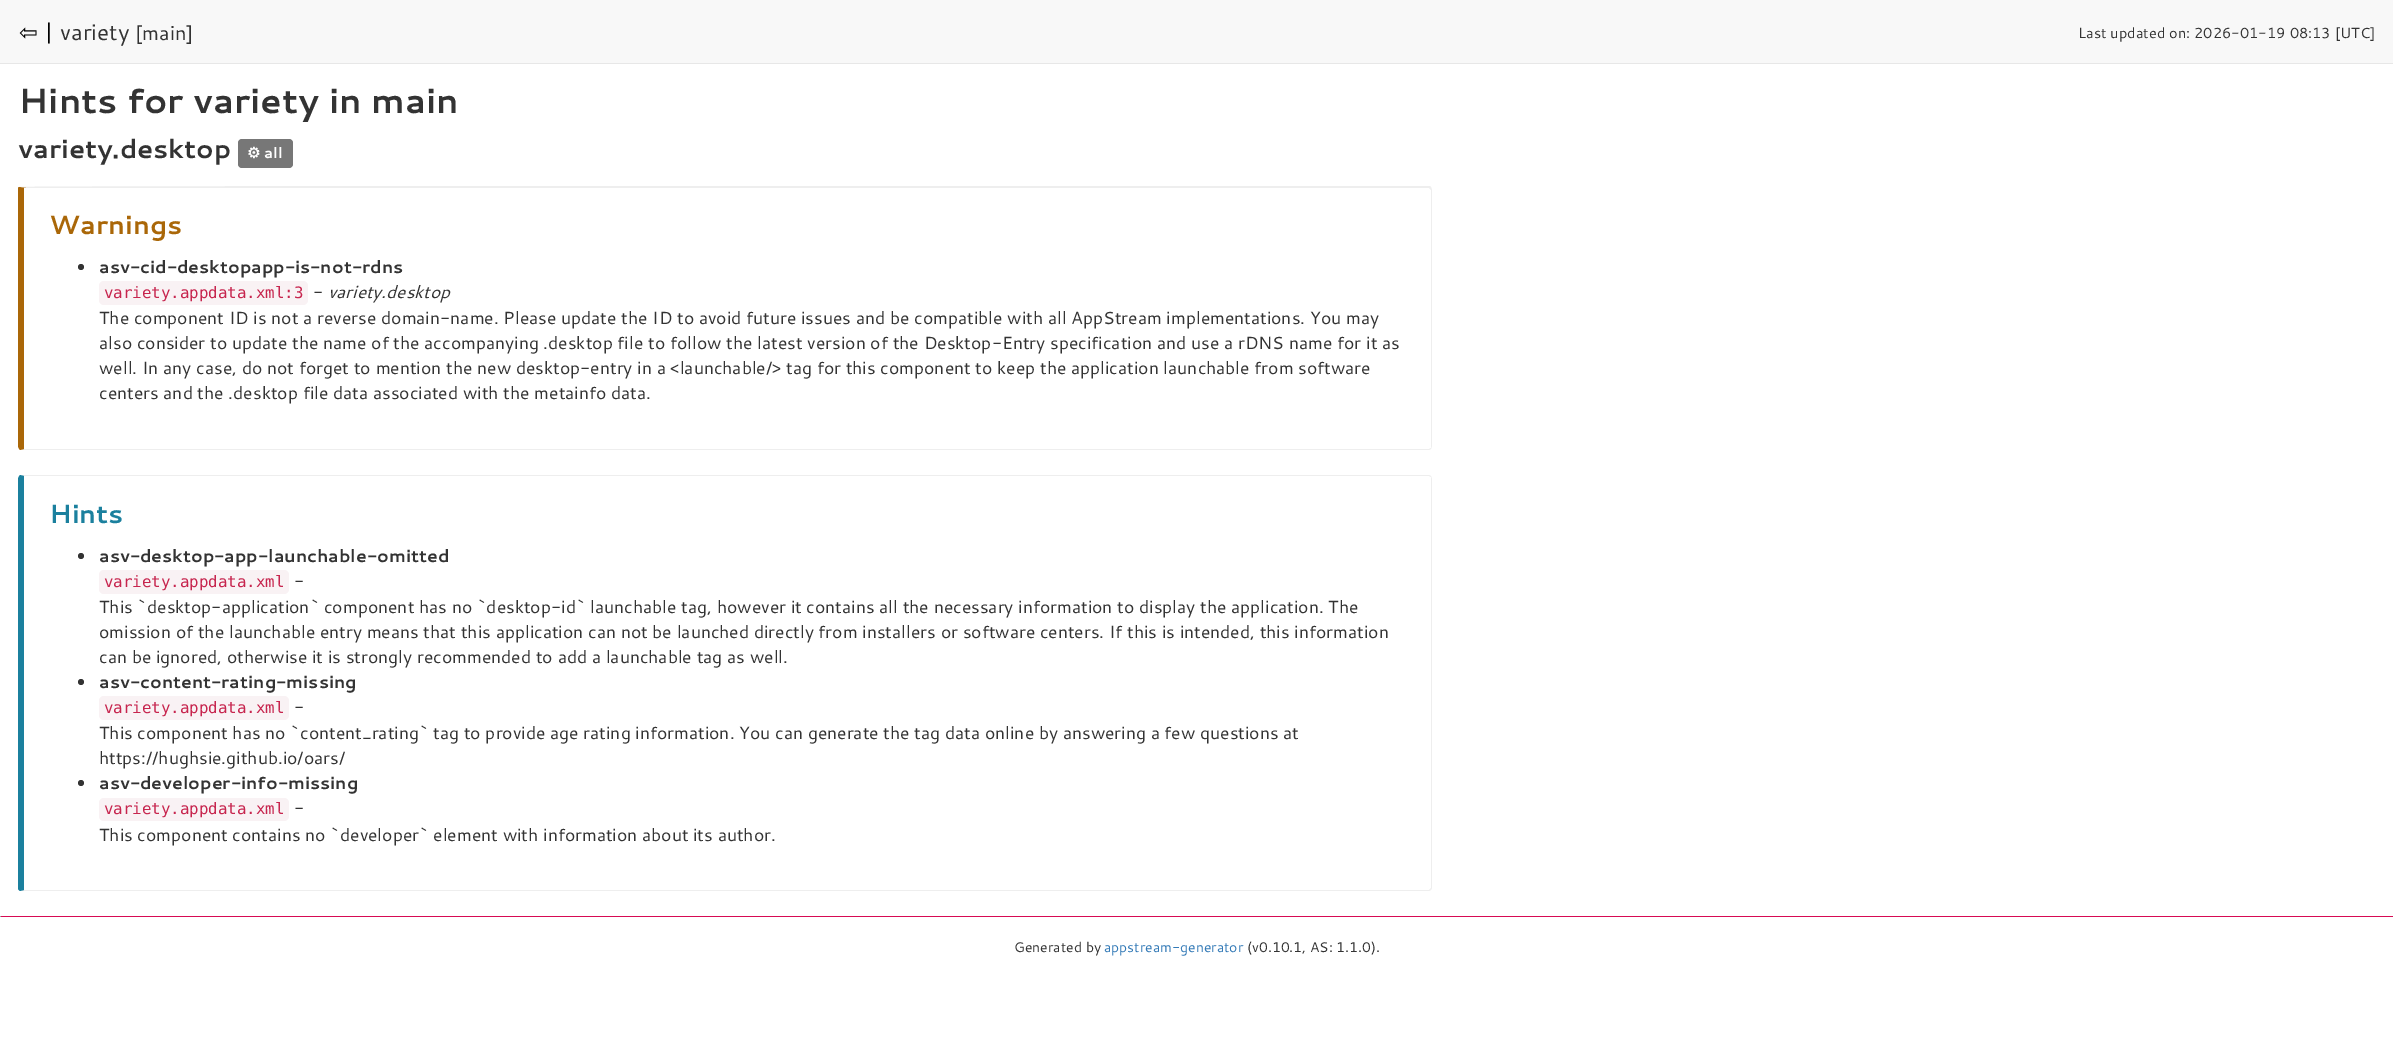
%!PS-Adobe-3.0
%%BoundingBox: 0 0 2393 1040
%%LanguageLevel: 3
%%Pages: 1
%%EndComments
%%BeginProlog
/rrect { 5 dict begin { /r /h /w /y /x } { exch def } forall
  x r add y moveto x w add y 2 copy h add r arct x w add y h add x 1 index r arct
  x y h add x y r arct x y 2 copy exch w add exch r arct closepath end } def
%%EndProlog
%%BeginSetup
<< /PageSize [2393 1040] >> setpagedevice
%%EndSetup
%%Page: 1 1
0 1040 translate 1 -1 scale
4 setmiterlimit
1 setgray
0 0 2393 1040 rectfill
0.973 setgray
0 0 2393 63 rectfill
0.906 setgray
0 63 2393 1 rectfill
0.467 setgray
238 139 55 29 4 rrect fill
0.933 setgray
newpath 19 187 moveto 20 186 674 186 725 186 curveto 1430 186 lineto 1431 187 lineto 1430 189 lineto 1429 188 lineto 26 188 lineto closepath fill
newpath 1431 187 moveto 1432 190 lineto 1432 446 lineto 1431 449 lineto 1431 448 lineto 1431 446 lineto 1431 190 lineto 1430 189 lineto closepath fill
newpath 21 450 moveto 1429 450 lineto 1431 449 lineto 1431 448 lineto 1429 449 lineto 24 449 lineto 20 450 lineto closepath fill
0.667 0.404 0.031 setrgbcolor
newpath 24 188 moveto 24 449 lineto 20 450 lineto 19 449 18 447 18 446 curveto 18 190 lineto 18 189 18 187 19 187 curveto 26 188 lineto closepath fill
0.2 setgray
newpath 81 267 3 0 360 arc closepath fill
0.976 0.949 0.957 setrgbcolor
99 281 209 24 5 rrect fill
0.933 setgray
newpath 21 475 moveto 20 475 lineto 24 476 lineto 1429 476 lineto 1431 477 lineto 1431 476 lineto 1429 475 lineto closepath fill
newpath 1431 476 moveto 1432 479 lineto 1432 888 lineto 1431 890 lineto 1430 889 lineto 1431 888 lineto 1431 479 lineto 1431 477 lineto closepath fill
newpath 1431 890 moveto 1429 891 lineto 20 891 lineto 24 890 lineto 1429 890 lineto 1430 889 lineto closepath fill
0.106 0.502 0.62 setrgbcolor
newpath 20 475 moveto 19 476 18 478 18 479 curveto 18 888 lineto 18 890 19 890 20 891 curveto 24 890 lineto 24 476 lineto closepath fill
0.2 setgray
newpath 81 556 3 0 360 arc closepath fill
0.976 0.949 0.957 setrgbcolor
99 570 190 24 5 rrect fill
0.2 setgray
newpath 81 682 3 0 360 arc closepath fill
0.976 0.949 0.957 setrgbcolor
99 696 190 24 5 rrect fill
0.2 setgray
newpath 81 783 3 0 360 arc closepath fill
0.976 0.949 0.957 setrgbcolor
99 798 190 23 5 rrect fill
0.843 0.039 0.325 setrgbcolor
0 916 2393 1 rectfill
0.624 setgray
0 916 1 1 rectfill
/DejaVuSans-Regular [22.5 0 0 -22.5 0 0] selectfont
0 setgray
19 40 moveto (⇦) show
/Cantarell-Regular [22.5 0 0 -22.5 0 0] selectfont
44 40 moveto (|) show
0.2 setgray
60 40 moveto (variety) show
/Cantarell-Regular [20 0 0 -20 0 0] selectfont
135 40 moveto ([main]) show
/Cantarell-Regular [14.6 0 0 -14.6 0 0] selectfont
2078 38 moveto (Last updated on: 2026-01-19 08:13 [UTC]) show
/Cantarell-Bold [35 0 0 -35 0 0] selectfont
18 113 moveto (Hints for variety in main) show
/Cantarell-Bold [26.25 0 0 -26.25 0 0] selectfont
18 158 moveto (variety.desktop) show
/DejaVuSans-Bold [15 0 0 -15 0 0] selectfont
1 setgray
247 158 moveto (⚙) show
/Cantarell-Bold [15 0 0 -15 0 0] selectfont
264 158 moveto (all) show
/Cantarell-Bold [26.25 0 0 -26.25 0 0] selectfont
0.667 0.404 0.031 setrgbcolor
49 234 moveto (Warnings) show
/Cantarell-Bold [17.5 0 0 -17.5 0 0] selectfont
0.2 setgray
99 273 moveto (asv-cid-desktopapp-is-not-rdns) show
/DejaVuSansMono-Regular [15.75 0 0 -15.75 0 0] selectfont
0.78 0.145 0.306 setrgbcolor
104 298 moveto (variety.appdata.xml:3) show
/Cantarell-Regular [17.5 0 0 -17.5 0 0] selectfont
0.2 setgray
313 298 moveto (-) show
/Cantarell-Italic [17.5 0 0 -17.5 0 0] selectfont
328 298 moveto (variety.desktop) show
/Cantarell-Regular [17.5 0 0 -17.5 0 0] selectfont
99 324 moveto (The component ID is not a reverse domain-name. Please update the ID to avoid future issues and be compatible with all AppStream implementations. You may) show
99 349 moveto (also consider to update the name of the accompanying .desktop file to follow the latest version of the Desktop-Entry specification and use a rDNS name for it as) show
99 374 moveto (well. In any case, do not forget to mention the new desktop-entry in a <launchable/> tag for this component to keep the application launchable from software) show
99 399 moveto (centers and the .desktop file data associated with the metainfo data.) show
/Cantarell-Bold [26.25 0 0 -26.25 0 0] selectfont
0.106 0.502 0.62 setrgbcolor
49 523 moveto (Hints) show
/Cantarell-Bold [17.5 0 0 -17.5 0 0] selectfont
0.2 setgray
99 562 moveto (asv-desktop-app-launchable-omitted) show
/DejaVuSansMono-Regular [15.75 0 0 -15.75 0 0] selectfont
0.78 0.145 0.306 setrgbcolor
104 587 moveto (variety.appdata.xml) show
/Cantarell-Regular [17.5 0 0 -17.5 0 0] selectfont
0.2 setgray
294 587 moveto (-) show
99 613 moveto (This `desktop-application` component has no `desktop-id` launchable tag, however it contains all the necessary information to display the application. The) show
99 638 moveto (omission of the launchable entry means that this application can not be launched directly from installers or software centers. If this is intended, this information) show
99 663 moveto (can be ignored, otherwise it is strongly recommended to add a launchable tag as well.) show
/Cantarell-Bold [17.5 0 0 -17.5 0 0] selectfont
99 688 moveto (asv-content-rating-missing) show
/DejaVuSansMono-Regular [15.75 0 0 -15.75 0 0] selectfont
0.78 0.145 0.306 setrgbcolor
104 713 moveto (variety.appdata.xml) show
/Cantarell-Regular [17.5 0 0 -17.5 0 0] selectfont
0.2 setgray
294 713 moveto (-) show
99 739 moveto (This component has no `content_rating` tag to provide age rating information. You can generate the tag data online by answering a few questions at) show
99 764 moveto (https://hughsie.github.io/oars/) show
/Cantarell-Bold [17.5 0 0 -17.5 0 0] selectfont
99 789 moveto (asv-developer-info-missing) show
/DejaVuSansMono-Regular [15.75 0 0 -15.75 0 0] selectfont
0.78 0.145 0.306 setrgbcolor
104 814 moveto (variety.appdata.xml) show
/Cantarell-Regular [17.5 0 0 -17.5 0 0] selectfont
0.2 setgray
294 814 moveto (-) show
99 841 moveto (This component contains no `developer` element with information about its author.) show
/Cantarell-Regular [14 0 0 -14 0 0] selectfont
1014 952 moveto (Generated by) show
0.2 0.478 0.718 setrgbcolor
1104 952 moveto (appstream-generator) show
0.2 setgray
1247 952 moveto (\(v0.10.1, AS: 1.1.0\).) show
showpage
%%EOF
